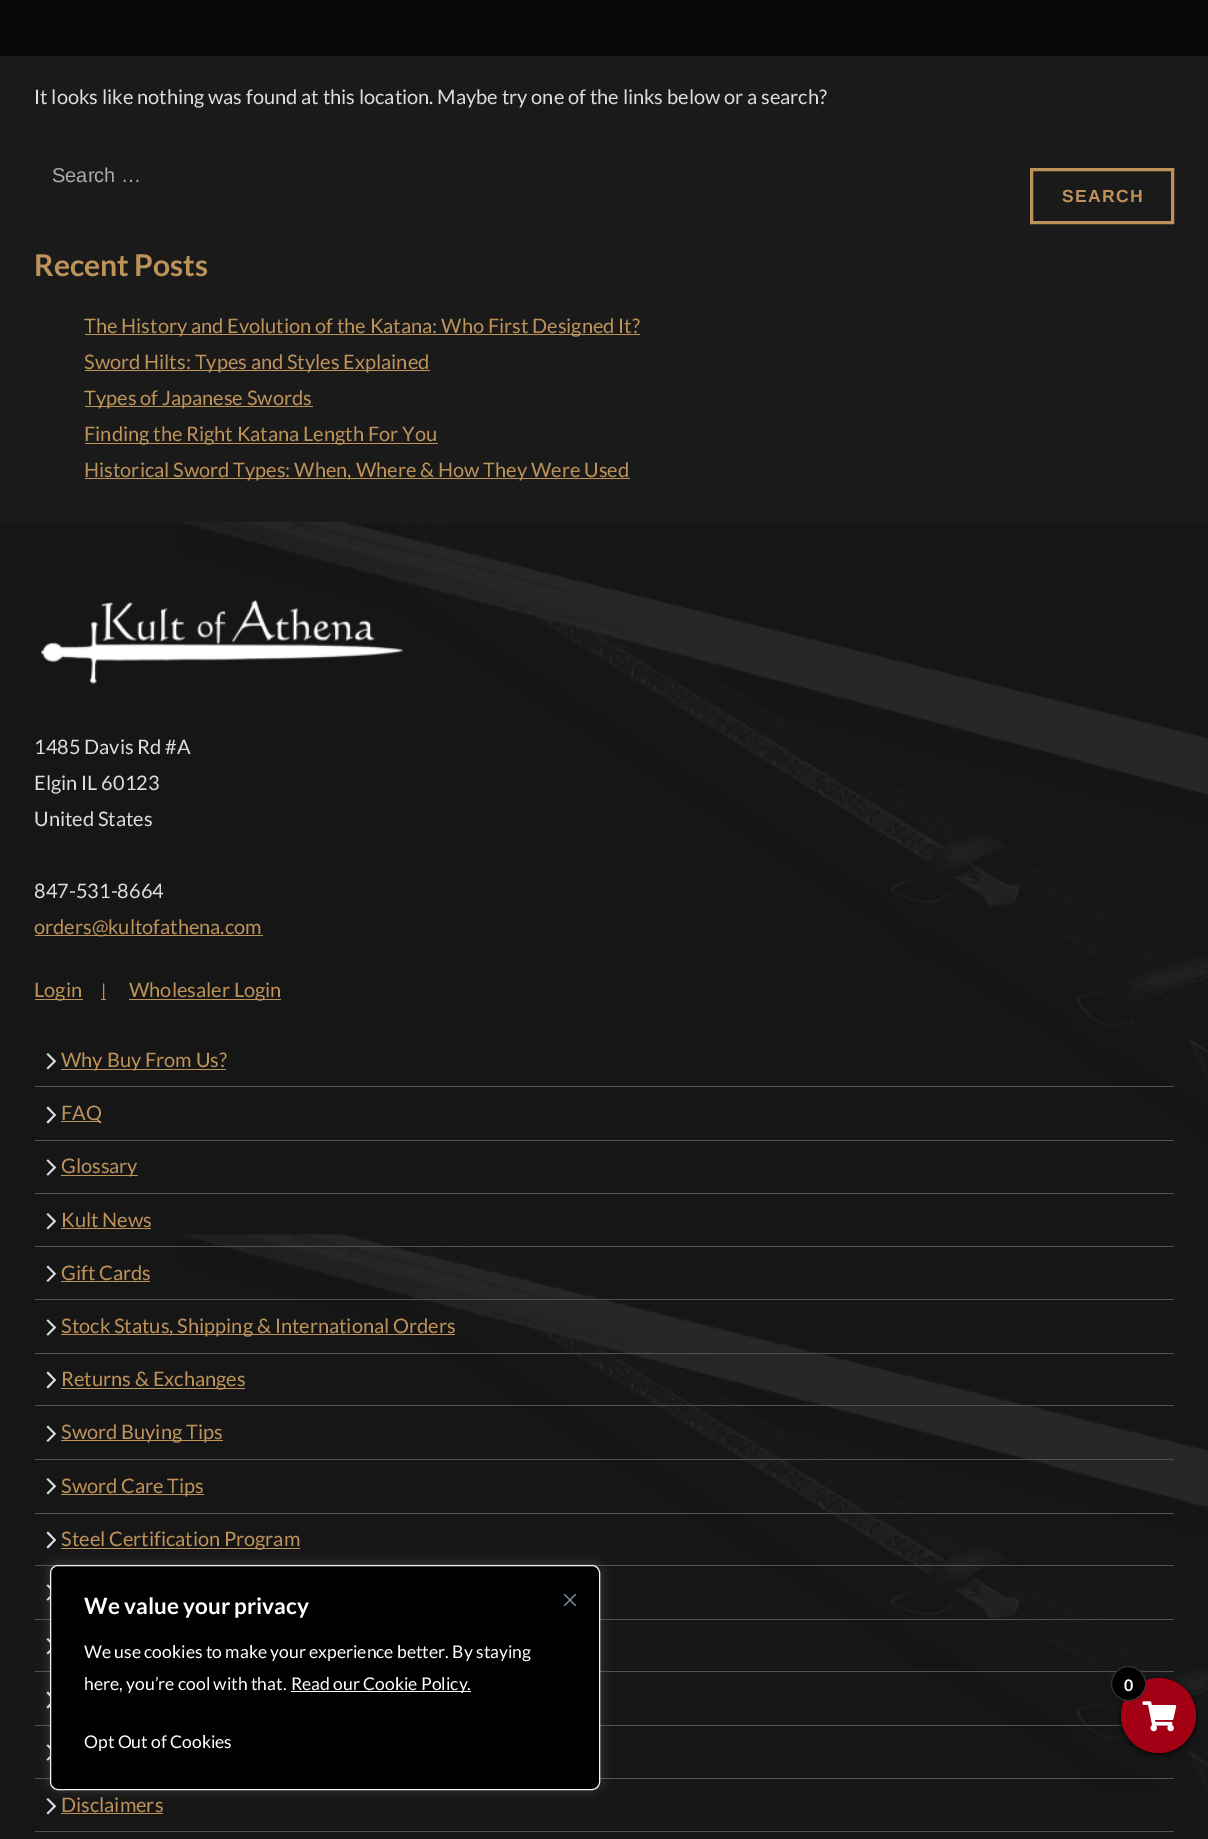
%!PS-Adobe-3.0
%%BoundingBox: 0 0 1208 1839
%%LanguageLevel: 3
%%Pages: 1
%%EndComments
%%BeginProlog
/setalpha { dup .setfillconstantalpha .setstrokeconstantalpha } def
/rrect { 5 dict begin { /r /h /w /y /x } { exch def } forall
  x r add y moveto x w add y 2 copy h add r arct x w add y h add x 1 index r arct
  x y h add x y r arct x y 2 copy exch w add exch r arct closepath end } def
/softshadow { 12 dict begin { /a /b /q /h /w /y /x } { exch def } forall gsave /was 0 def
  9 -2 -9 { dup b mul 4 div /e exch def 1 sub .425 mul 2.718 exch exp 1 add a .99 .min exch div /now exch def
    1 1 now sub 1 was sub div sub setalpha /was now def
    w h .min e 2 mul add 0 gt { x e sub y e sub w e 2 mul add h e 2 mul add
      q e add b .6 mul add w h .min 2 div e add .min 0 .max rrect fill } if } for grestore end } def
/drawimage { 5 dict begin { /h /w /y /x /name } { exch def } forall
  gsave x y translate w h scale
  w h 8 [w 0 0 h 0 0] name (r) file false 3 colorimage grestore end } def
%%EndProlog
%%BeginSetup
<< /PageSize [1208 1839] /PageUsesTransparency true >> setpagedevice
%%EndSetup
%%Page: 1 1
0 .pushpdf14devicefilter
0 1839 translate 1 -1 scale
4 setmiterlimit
0.102 setgray
0 0 1208 1839 rectfill
gsave newpath 0 0 moveto 1208 0 lineto 1208 56 lineto 0 56 lineto closepath clip newpath
<< /ShadingType 2 /ColorSpace /DeviceRGB /Coords [604 -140 604 56] /Extend [true true] /Function << /FunctionType 3 /Domain [0 1] /Functions [<< /FunctionType 2 /Domain [0 1] /C0 [0.012 0.012 0.012] /C1 [0.012 0.012 0.012] /N 1 >> << /FunctionType 2 /Domain [0 1] /C0 [0.012 0.012 0.012] /C1 [0.035 0.035 0.035] /N 1 >>] /Bounds [0.1] /Encode [0 1 0 1] >> >> shfill grestore
0.745 0.576 0.349 setrgbcolor
3 setlinewidth
1031.5 169.5 141 53 rectstroke
85 334 555 1 rectfill
85 370 345 1 rectfill
85 406 228 1 rectfill
85 443 353 1 rectfill
85 478 545 1 rectfill
0.086 0.086 0.09 setrgbcolor
0 523 1208 1316 rectfill
(images/1.raw) 181 522 1027 1271 drawimage
(images/2.raw) 41 599 363 85 drawimage
0.745 0.576 0.349 setrgbcolor
35 935 228 1 rectfill
35 999 48 1 rectfill
101 999 5 1 rectfill
129 999 152 1 rectfill
0.314 0.318 0.322 setrgbcolor
35 1086 1139 1 rectfill
(images/3.raw) 46 1053 11 17 drawimage
0.745 0.576 0.349 setrgbcolor
61 1069 165 1 rectfill
0.314 0.318 0.322 setrgbcolor
35 1140 1139 1 rectfill
0.867 setgray
newpath 46.5 1122 moveto 48 1123.5 lineto 56 1115 lineto 48 1106.5 lineto 46.5 1108 lineto 53.5 1115 lineto closepath fill
0.745 0.576 0.349 setrgbcolor
61 1121 40 1 rectfill
0.314 0.318 0.322 setrgbcolor
35 1193 1139 1 rectfill
(images/4.raw) 46 1159 11 17 drawimage
0.745 0.576 0.349 setrgbcolor
61 1175 77 1 rectfill
0.314 0.318 0.322 setrgbcolor
35 1246 1139 1 rectfill
(images/3.raw) 46 1213 11 17 drawimage
0.745 0.576 0.349 setrgbcolor
61 1228 90 1 rectfill
0.314 0.318 0.322 setrgbcolor
35 1299 1139 1 rectfill
(images/5.raw) 46 1265 11 17 drawimage
0.745 0.576 0.349 setrgbcolor
61 1281 89 1 rectfill
0.314 0.318 0.322 setrgbcolor
35 1353 1139 1 rectfill
(images/4.raw) 46 1319 11 17 drawimage
0.745 0.576 0.349 setrgbcolor
61 1334 394 1 rectfill
0.314 0.318 0.322 setrgbcolor
35 1405 1139 1 rectfill
0.867 setgray
newpath 46.5 1387 moveto 48 1388.5 lineto 56 1380 lineto 48 1371.5 lineto 46.5 1373 lineto 53.5 1380 lineto closepath fill
0.745 0.576 0.349 setrgbcolor
61 1388 184 1 rectfill
0.314 0.318 0.322 setrgbcolor
35 1459 1139 1 rectfill
(images/5.raw) 46 1425 11 17 drawimage
0.745 0.576 0.349 setrgbcolor
61 1440 162 1 rectfill
0.314 0.318 0.322 setrgbcolor
35 1513 1139 1 rectfill
(images/3.raw) 46 1478 11 17 drawimage
0.745 0.576 0.349 setrgbcolor
61 1494 143 1 rectfill
0.314 0.318 0.322 setrgbcolor
35 1565 1139 1 rectfill
0.867 setgray
newpath 46.5 1547 moveto 48 1548.5 lineto 56 1540 lineto 48 1531.5 lineto 46.5 1533 lineto 53.5 1540 lineto closepath fill
0.745 0.576 0.349 setrgbcolor
61 1548 239 1 rectfill
0.314 0.318 0.322 setrgbcolor
35 1619 1139 1 rectfill
(images/6.raw) 46 1584 4 17 drawimage
35 1671 1139 1 rectfill
(images/7.raw) 46 1638 4 17 drawimage
35 1725 1088 1 rectfill
0.867 setgray
newpath 46.5 1707 moveto 48 1708.5 lineto 56 1700 lineto 48 1691.5 lineto 46.5 1693 lineto 53.5 1700 lineto closepath fill
0.314 0.318 0.322 setrgbcolor
35 1778 1139 1 rectfill
(images/6.raw) 46 1744 4 17 drawimage
35 1831 1139 1 rectfill
(images/3.raw) 46 1798 11 17 drawimage
0.745 0.576 0.349 setrgbcolor
61 1813 102 1 rectfill
0.675 0.671 0.671 setrgbcolor
50 1564 550 225 8 6 0.3 softshadow
0 setgray
50.5 1565.5 549 224 7.5 rrect gsave fill grestore
0.957 setgray
1 setlinewidth
stroke
0.992 setgray
291 1691 180 1 rectfill
(images/8.raw) 564 1594 12 12 drawimage
0 setgray
1121 1679 75 75 37.5 2.5 1 softshadow
0.639 0 0.082 setrgbcolor
newpath 1158.5 1715.5 37.5 0 360 arc closepath fill
0 setgray
newpath 1128.5 1683.5 17 0 360 arc closepath gsave fill grestore
0.2 setgray
stroke
(images/9.raw) 1142 1701 35 31 drawimage
/Lato-Regular [20 0 0 -20 0 0] selectfont
0.867 setgray
34 104 moveto (It looks like nothing was found at this location. Maybe try one of the links below or a search?) show
/LiberationSans-Regular [20 0 0 -20 0 0] selectfont
0.671 setgray
52 182 moveto (Search …) show
/LiberationSans-Bold [17.5 0 0 -17.5 0 0] selectfont
0.745 0.576 0.349 setrgbcolor
1062 202 moveto 1.25 0 (SEARCH) ashow
/Lato-Bold [30 0 0 -30 0 0] selectfont
34 276 moveto (Recent Posts) show
/Lato-Regular [20 0 0 -20 0 0] selectfont
84 333 moveto (The History and Evolution of the Katana: Who First Designed It?) show
84 369 moveto (Sword Hilts: Types and Styles Explained) show
84 405 moveto (Types of Japanese Swords) show
84 441 moveto (Finding the Right Katana Length For You) show
84 477 moveto (Historical Sword Types: When, Where & How They Were Used) show
0.867 setgray
34 754 moveto (1485 Davis Rd #A) show
34 790 moveto (Elgin IL 60123) show
34 826 moveto (United States) show
34 898 moveto (847-531-8664) show
0.745 0.576 0.349 setrgbcolor
34 934 moveto (orders@kultofathena.com) show
34 997 moveto (Login) show
/Lato-Regular [17.5 0 0 -17.5 0 0] selectfont
101 997 moveto (|) show
/Lato-Regular [20 0 0 -20 0 0] selectfont
129 997 moveto (Wholesaler Login) show
61 1067 moveto (Why Buy From Us?) show
61 1120 moveto (FAQ) show
61 1173 moveto (Glossary) show
61 1227 moveto (Kult News) show
61 1280 moveto (Gift Cards) show
61 1333 moveto (Stock Status, Shipping & International Orders) show
61 1386 moveto (Returns & Exchanges) show
61 1439 moveto (Sword Buying Tips) show
61 1493 moveto (Sword Care Tips) show
61 1546 moveto (Steel Certification Program) show
61 1812 moveto (Disclaimers) show
/Lato-Bold [22.5 0 0 -22.5 0 0] selectfont
1 setgray
84 1614 moveto (We value your privacy) show
/Lato-Regular [17.5 0 0 -17.5 0 0] selectfont
84 1658 moveto (We use cookies to make your experience better. By staying) show
84 1690 moveto (here, you’re cool with that.) show
291 1690 moveto (Read our Cookie Policy.) show
84 1748 moveto (Opt Out of Cookies) show
/Lato-Bold [16 0 0 -16 0 0] selectfont
1124 1691 moveto (0) show
.poppdf14devicefilter showpage
%%EOF
